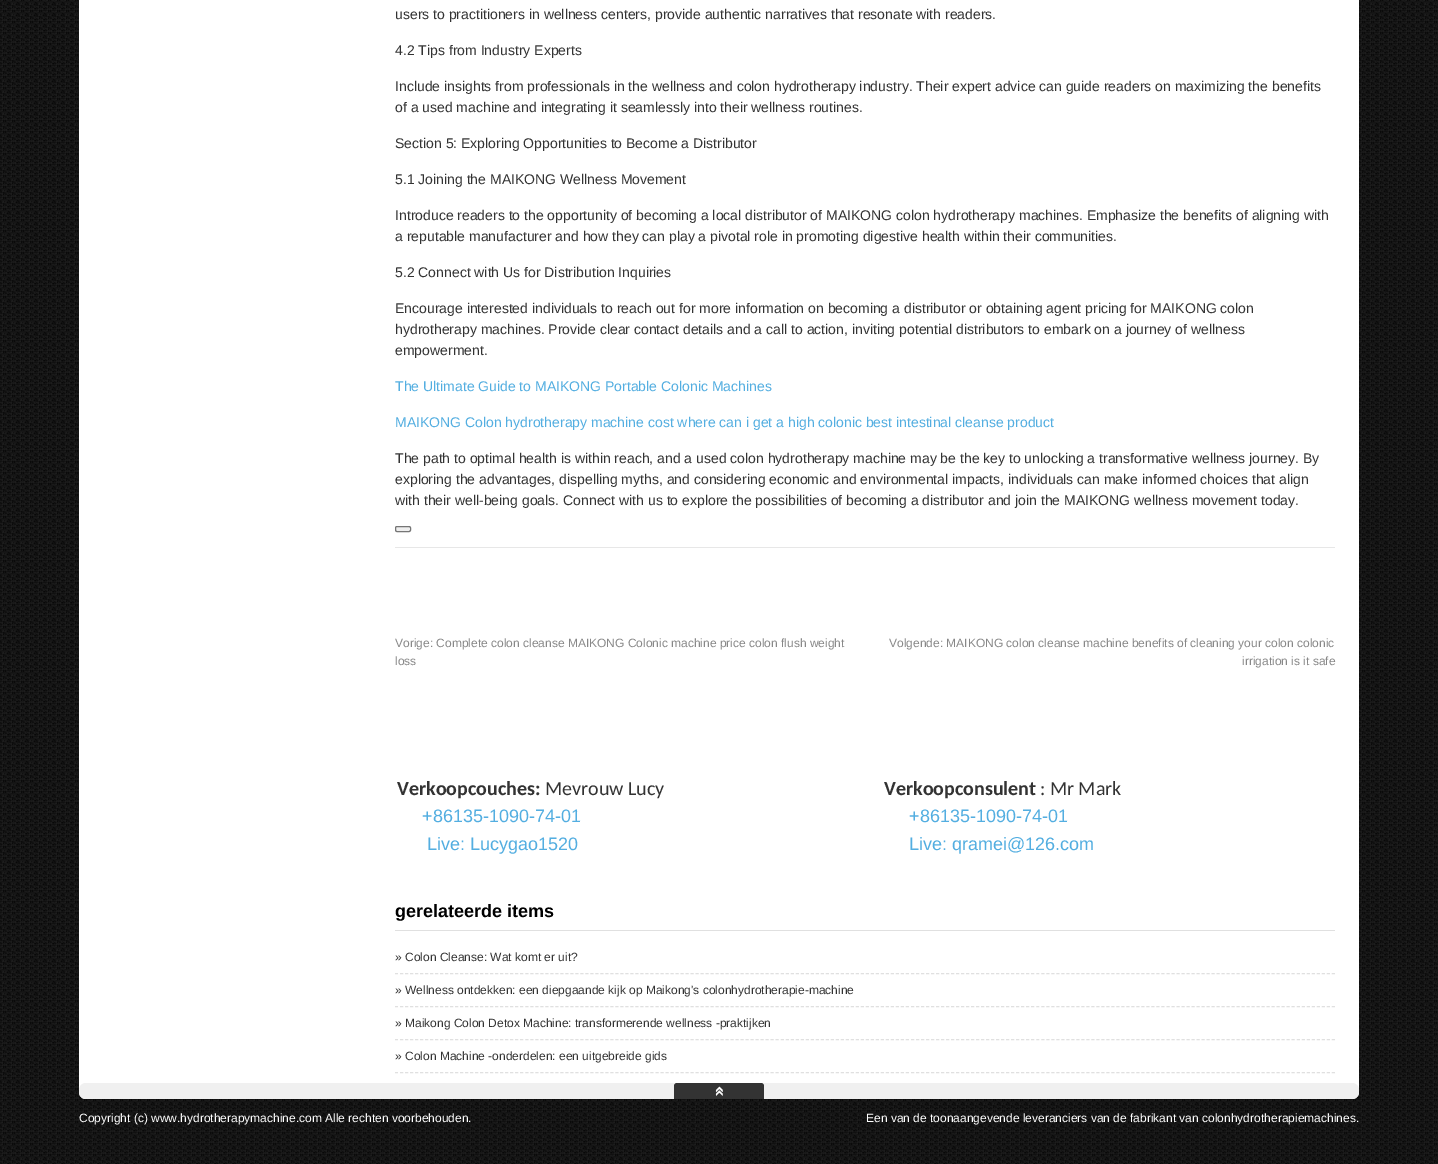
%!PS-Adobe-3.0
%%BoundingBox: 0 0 1438 1164
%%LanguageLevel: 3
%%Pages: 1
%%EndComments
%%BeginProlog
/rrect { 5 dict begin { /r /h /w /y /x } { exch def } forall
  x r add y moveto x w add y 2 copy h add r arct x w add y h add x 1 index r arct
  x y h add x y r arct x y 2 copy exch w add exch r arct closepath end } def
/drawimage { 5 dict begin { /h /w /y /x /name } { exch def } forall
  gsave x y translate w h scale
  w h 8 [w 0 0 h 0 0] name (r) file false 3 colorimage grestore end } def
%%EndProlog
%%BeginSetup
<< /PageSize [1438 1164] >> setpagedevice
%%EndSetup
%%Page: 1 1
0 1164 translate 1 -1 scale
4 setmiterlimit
1 setgray
0 0 1438 1164 rectfill
(images/1.raw) 0 0 1438 1164 drawimage
79 -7 1280 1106 7 rrect fill
0.937 setgray
395.5 526.5 15 5 1.5 rrect gsave fill grestore
0.463 setgray
stroke
0.906 setgray
395 547 940 1 rectfill
0.878 setgray
395 930 940 1 rectfill
[3 2.01] 0 setdash
newpath 395 973.5 moveto 1335 973.5 lineto stroke
newpath 395 1006.5 moveto 1335 1006.5 lineto stroke
newpath 395 1039.5 moveto 1335 1039.5 lineto stroke
newpath 395 1072.5 moveto 1335 1072.5 lineto stroke
0.941 setgray
79 1083 1280 16 7 rrect fill
0.2 setgray
newpath 677 1083 moveto 761 1083 lineto 762.5 1083 764 1084.5 764 1086 curveto 764 1099 lineto 674 1099 lineto 674 1086 lineto 674 1084.5 675.5 1083 677 1083 curveto closepath fill
(images/2.raw) 715 1086 8 10 drawimage
/LiberationSans-Regular [14 0 0 -14 0 0] selectfont
395 19 moveto (users to practitioners in wellness centers, provide authentic narratives that resonate with readers.) show
395 55 moveto (4.2 Tips from Industry Experts) show
395 91 moveto (Include insights from professionals in the wellness and colon hydrotherapy industry. Their expert advice can guide readers on maximizing the benefits) show
395 112 moveto (of a used machine and integrating it seamlessly into their wellness routines.) show
395 148 moveto (Section 5: Exploring Opportunities to Become a Distributor) show
395 184 moveto (5.1 Joining the MAIKONG Wellness Movement) show
395 220 moveto (Introduce readers to the opportunity of becoming a local distributor of MAIKONG colon hydrotherapy machines. Emphasize the benefits of aligning with) show
395 241 moveto (a reputable manufacturer and how they can play a pivotal role in promoting digestive health within their communities.) show
395 277 moveto (5.2 Connect with Us for Distribution Inquiries) show
395 313 moveto (Encourage interested individuals to reach out for more information on becoming a distributor or obtaining agent pricing for MAIKONG colon) show
395 334 moveto (hydrotherapy machines. Provide clear contact details and a call to action, inviting potential distributors to embark on a journey of wellness) show
395 355 moveto (empowerment.) show
0.325 0.682 0.882 setrgbcolor
395 391 moveto (The Ultimate Guide to MAIKONG Portable Colonic Machines) show
395 427 moveto (MAIKONG Colon hydrotherapy machine cost where can i get a high colonic best intestinal cleanse product) show
0.2 setgray
395 463 moveto (The path to optimal health is within reach, and a used colon hydrotherapy machine may be the key to unlocking a transformative wellness journey. By) show
395 484 moveto (exploring the advantages, dispelling myths, and considering economic and environmental impacts, individuals can make informed choices that align) show
395 505 moveto (with their well-being goals. Connect with us to explore the possibilities of becoming a distributor and join the MAIKONG wellness movement today.) show
/LiberationSans-Regular [12 0 0 -12 0 0] selectfont
0.533 setgray
395 647 moveto (Vorige: Complete colon cleanse MAIKONG Colonic machine price colon flush weight) show
395 665 moveto (loss) show
889 647 moveto (Volgende: MAIKONG colon cleanse machine benefits of cleaning your colon colonic) show
1242 665 moveto (irrigation is it safe) show
/Carlito-Bold [20 0 0 -20 0 0] selectfont
0.2 setgray
397 795 moveto (Verkoopcouches:) show
/Carlito-Regular [20 0 0 -20 0 0] selectfont
545 795 moveto (Mevrouw Lucy) show
/Carlito-Bold [20 0 0 -20 0 0] selectfont
884 795 moveto (Verkoopconsulent) show
/Carlito-Regular [20 0 0 -20 0 0] selectfont
1040 795 moveto (: Mr Mark) show
/LiberationSans-Regular [18 0 0 -18 0 0] selectfont
0.325 0.682 0.882 setrgbcolor
422 822 moveto (+86135-1090-74-01) show
909 822 moveto (+86135-1090-74-01) show
427 850 moveto (Live: Lucygao1520) show
909 850 moveto (Live: qramei@126.com) show
/LiberationSans-Bold [18 0 0 -18 0 0] selectfont
0 setgray
395 917 moveto (gerelateerde items) show
/LiberationSans-Regular [12 0 0 -12 0 0] selectfont
0.2 setgray
395 961 moveto (» Colon Cleanse: Wat komt er uit?) show
395 994 moveto (» Wellness ontdekken: een diepgaande kijk op Maikong's colonhydrotherapie-machine) show
395 1027 moveto (» Maikong Colon Detox Machine: transformerende wellness -praktijken) show
395 1060 moveto (» Colon Machine -onderdelen: een uitgebreide gids) show
1 setgray
79 1122 moveto (Copyright \(c\) www.hydrotherapymachine.com Alle rechten voorbehouden.) show
866 1122 moveto (Een van de toonaangevende leveranciers van de fabrikant van colonhydrotherapiemachines.) show
showpage
%%EOF
